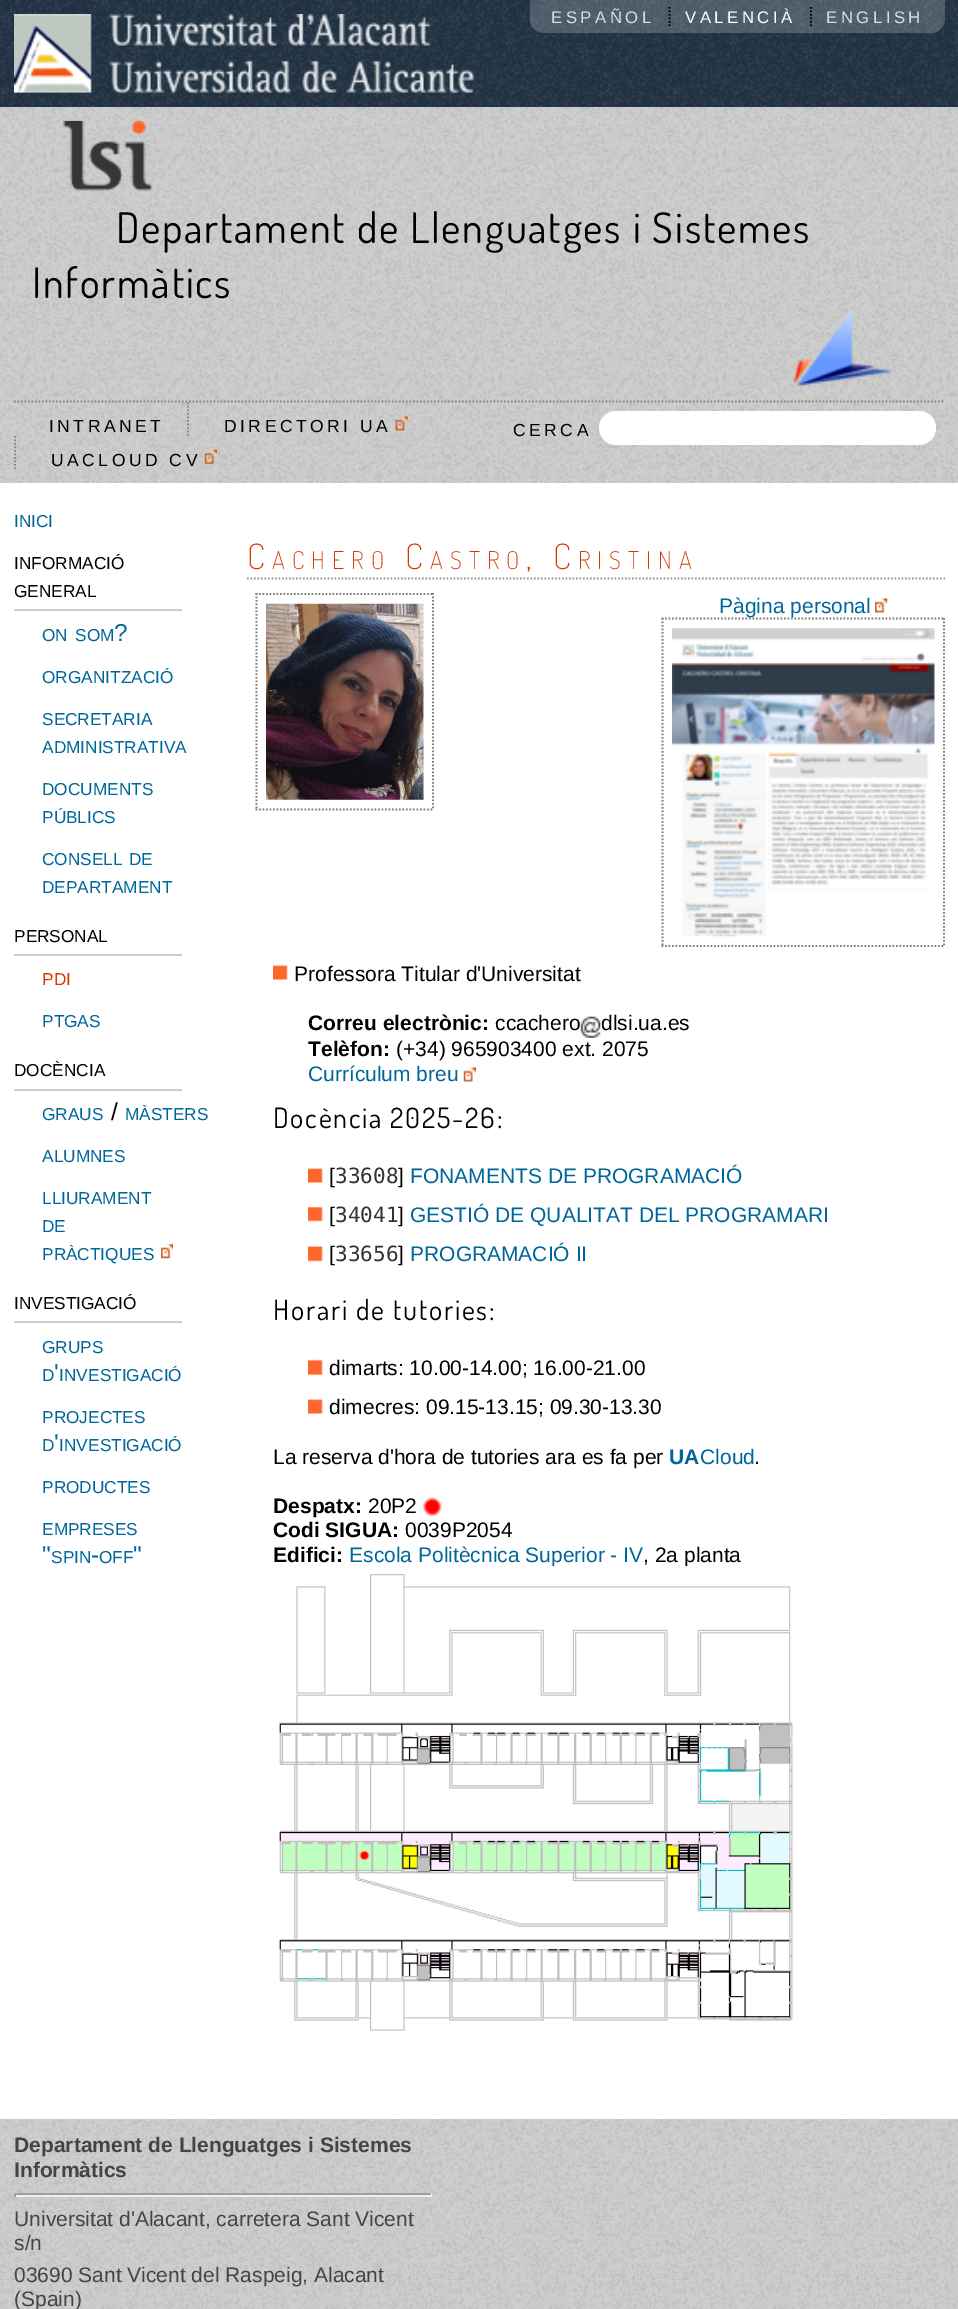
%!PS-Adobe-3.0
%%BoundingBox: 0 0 958 2309
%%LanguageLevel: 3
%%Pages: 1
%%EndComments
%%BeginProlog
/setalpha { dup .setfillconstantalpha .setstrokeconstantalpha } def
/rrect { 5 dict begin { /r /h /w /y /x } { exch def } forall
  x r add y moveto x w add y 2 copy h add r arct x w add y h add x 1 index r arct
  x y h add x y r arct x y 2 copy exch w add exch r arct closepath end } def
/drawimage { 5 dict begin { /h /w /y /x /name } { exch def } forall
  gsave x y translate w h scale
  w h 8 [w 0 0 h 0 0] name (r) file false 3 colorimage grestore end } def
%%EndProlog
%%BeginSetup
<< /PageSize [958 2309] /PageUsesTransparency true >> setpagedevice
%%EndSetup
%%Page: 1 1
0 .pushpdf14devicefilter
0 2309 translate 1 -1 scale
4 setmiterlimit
1 setgray
0 0 958 2309 rectfill
0.133 0.2 0.267 setrgbcolor
0 0 958 107 rectfill
(images/1.raw) 0 0 958 107 drawimage
(images/2.raw) 14 14 461 79 drawimage
0.2 setalpha
1 setgray
newpath 530 0 moveto 945 0 lineto 945 19 lineto 945 26.5 938.5 33 931 33 curveto 544 33 lineto 536.5 33 530 26.5 530 19 curveto closepath fill
1 setalpha
0 setgray
1.8 setlinewidth
[1.75 1.75] 0 setdash
newpath 669.5 7 moveto 669.5 26 lineto stroke
newpath 811 7 moveto 811 26 lineto stroke
0.8 setgray
0 107 958 376 rectfill
(images/3.raw) 0 107 958 376 drawimage
(images/4.raw) 63 120 90 71 drawimage
(images/5.raw) 793 309 100 78 drawimage
0.533 setgray
newpath 14 401.5 moveto 945 401.5 lineto stroke
newpath 188 402.5 moveto 188 436 lineto stroke
(images/6.raw) 395 416 13 15 drawimage
newpath 15 436 moveto 15 469 lineto stroke
(images/7.raw) 204 449 13 15 drawimage
1 setgray
599 411 337 34 17 rrect fill
0.8 setgray
14 609 168 2 rectfill
14 954 168 2 rectfill
14 1089 168 2 rectfill
(images/8.raw) 161 1244 12 15 drawimage
14 1321 168 2 rectfill
0.6 setgray
newpath 247 578.5 moveto 945 578.5 lineto stroke
0.502 setgray
newpath 255.5 594 moveto 434 594 lineto stroke
newpath 433 593 moveto 433 810 lineto stroke
newpath 255.5 809.5 moveto 434 809.5 lineto stroke
newpath 256.5 593 moveto 256.5 810 lineto stroke
(images/9.raw) 266 603 158 197 drawimage
(images/10.raw) 875 598 13 15 drawimage
(images/11.raw) 672 628 263 309 drawimage
(images/12.raw) 273 965 15 15 drawimage
(images/13.raw) 580 1016 21 22 drawimage
(images/14.raw) 463 1067 13 15 drawimage
(images/12.raw) 308 1168 15 15 drawimage
(images/15.raw) 308 1206 15 16 drawimage
(images/16.raw) 308 1246 15 16 drawimage
(images/17.raw) 308 1359 15 17 drawimage
(images/12.raw) 308 1399 15 15 drawimage
(images/18.raw) 423 1497 19 19 drawimage
0.8 setgray
0 2119 958 190 rectfill
(images/20.raw) 0 2119 958 190 drawimage
0.624 setgray
14 2193 418 2 rectfill
0.933 setgray
431 2193 1 4 rectfill
14 2195 418 2 rectfill
0.624 setgray
14 2193 2 4 rectfill
/LiberationSans-Regular [16.75 0 0 -16.75 0 0] selectfont
0.867 setgray
551 23 moveto 3.5 0 (ESPAÑOL) ashow
1 setgray
685 23 moveto 3.5 0 (VALENCIÀ) ashow
0.867 setgray
826 23 moveto 3.5 0 (ENGLISH) ashow
/Dosis-Regular [42 0 0 -42 0 0] selectfont
0 setgray
116 243 moveto 1.75 0 (Departament de Llenguatges i Sistemes) ashow
32 298 moveto 1.75 0 (Informàtics) ashow
/LiberationSans-Regular [17.5 0 0 -17.5 0 0] selectfont
49 432 moveto 3.5 0 (INTRANET) ashow
224 432 moveto 3.5 0 (DIRECTORI UA) ashow
51 466 moveto 3.5 0 (UACLOUD CV) ashow
513 436 moveto 3.5 0 (CERCA) ashow
/LiberationSans-Regular [17.25 0 0 -17.25 0 0] selectfont
0 0.4 0.6 setrgbcolor
14 527 moveto (INICI) show
0 setgray
14 569 moveto (INFORMACIÓ) show
14 597 moveto (GENERAL) show
0 0.4 0.6 setrgbcolor
42 641 moveto (ON) show
75 641 moveto (SOM) show
/LiberationSans-Regular [24.5 0 0 -24.5 0 0] selectfont
114 641 moveto (?) show
/LiberationSans-Regular [17.25 0 0 -17.25 0 0] selectfont
42 683 moveto (ORGANITZACIÓ) show
42 725 moveto (SECRETARIA) show
42 753 moveto (ADMINISTRATIVA) show
42 795 moveto (DOCUMENTS) show
42 823 moveto (PÚBLICS) show
42 865 moveto (CONSELL) show
129 865 moveto (DE) show
42 893 moveto (DEPARTAMENT) show
0 setgray
14 942 moveto (PERSONAL) show
0.839 0.212 0 setrgbcolor
42 985 moveto (PDI) show
0 0.4 0.6 setrgbcolor
42 1027 moveto (PTGAS) show
0 setgray
14 1076 moveto (DOCÈNCIA) show
0 0.4 0.6 setrgbcolor
42 1120 moveto (GRAUS) show
/LiberationSans-Regular [24.5 0 0 -24.5 0 0] selectfont
0 setgray
111 1120 moveto (/) show
/LiberationSans-Regular [17.25 0 0 -17.25 0 0] selectfont
0 0.4 0.6 setrgbcolor
125 1120 moveto (MÀSTERS) show
42 1162 moveto (ALUMNES) show
42 1204 moveto (LLIURAMENT) show
42 1232 moveto (DE) show
42 1260 moveto (PRÀCTIQUES) show
0 setgray
14 1309 moveto (INVESTIGACIÓ) show
0 0.4 0.6 setrgbcolor
42 1353 moveto (GRUPS) show
42 1381 moveto (D INVESTIGACIÓ) show
/LiberationSans-Regular [24.5 0 0 -24.5 0 0] selectfont
54 1381 moveto (') show
/LiberationSans-Regular [17.25 0 0 -17.25 0 0] selectfont
42 1423 moveto (PROJECTES) show
42 1451 moveto (D INVESTIGACIÓ) show
/LiberationSans-Regular [24.5 0 0 -24.5 0 0] selectfont
54 1451 moveto (') show
/LiberationSans-Regular [17.25 0 0 -17.25 0 0] selectfont
42 1493 moveto (PRODUCTES) show
42 1535 moveto (EMPRESES) show
/LiberationSans-Regular [24.5 0 0 -24.5 0 0] selectfont
42 1563 moveto (") show
133 1563 moveto (") show
/LiberationSans-Regular [17.25 0 0 -17.25 0 0] selectfont
51 1563 moveto (SPIN) show
/LiberationSans-Regular [24.5 0 0 -24.5 0 0] selectfont
91 1563 moveto (-) show
/LiberationSans-Regular [17.25 0 0 -17.25 0 0] selectfont
99 1563 moveto (OFF) show
/Dosis-ExtraLight [35 0 0 -35 0 0] selectfont
0.839 0.212 0 setrgbcolor
247 569 moveto 7 0 (C) ashow
/Dosis-ExtraLight [24.5 0 0 -24.5 0 0] selectfont
272 569 moveto 7 0 (ACHERO) ashow
/Dosis-ExtraLight [35 0 0 -35 0 0] selectfont
405 569 moveto 7 0 (C) ashow
/Dosis-ExtraLight [24.5 0 0 -24.5 0 0] selectfont
430 569 moveto 7 0 (ASTRO) ashow
/Dosis-ExtraLight [35 0 0 -35 0 0] selectfont
526 569 moveto 7 0 (, C) ashow
/Dosis-ExtraLight [24.5 0 0 -24.5 0 0] selectfont
578 569 moveto 7 0 (RISTINA) ashow
/LiberationSans-Regular [21 0 0 -21 0 0] selectfont
0 0.4 0.6 setrgbcolor
719 613 moveto (Pàgina personal) show
0.502 setgray
newpath 661.5 618.5 moveto 945 618.5 lineto stroke
newpath 944 618 moveto 944 947 lineto stroke
newpath 661.5 946 moveto 945 946 lineto stroke
newpath 662.5 618 moveto 662.5 947 lineto stroke
0 setgray
294 981 moveto (Professora Titular d'Universitat) show
/LiberationSans-Bold [21 0 0 -21 0 0] selectfont
308 1030 moveto (Correu electrònic:) show
/LiberationSans-Regular [21 0 0 -21 0 0] selectfont
495 1030 moveto (ccachero) show
601 1030 moveto (dlsi.ua.es) show
/LiberationSans-Bold [21 0 0 -21 0 0] selectfont
308 1056 moveto (Telèfon:) show
/LiberationSans-Regular [21 0 0 -21 0 0] selectfont
396 1056 moveto (\(+34\) 965903400 ext. 2075) show
0 0.4 0.6 setrgbcolor
308 1081 moveto (Currículum breu) show
/Dosis-Regular [28 0 0 -28 0 0] selectfont
0 setgray
273 1128 moveto 1.75 0 (Docència 2025-26:) ashow
/LiberationSans-Regular [21 0 0 -21 0 0] selectfont
329 1183 moveto ([) show
/DejaVuSansMono-Regular [21 0 0 -21 0 0] selectfont
0.2 setgray
335 1183 moveto (33608) show
/LiberationSans-Regular [21 0 0 -21 0 0] selectfont
0 setgray
398 1183 moveto (]) show
0 0.4 0.6 setrgbcolor
410 1183 moveto (FONAMENTS DE PROGRAMACIÓ) show
0 setgray
329 1222 moveto ([) show
/DejaVuSansMono-Regular [21 0 0 -21 0 0] selectfont
0.2 setgray
335 1222 moveto (34041) show
/LiberationSans-Regular [21 0 0 -21 0 0] selectfont
0 setgray
398 1222 moveto (]) show
0 0.4 0.6 setrgbcolor
410 1222 moveto (GESTIÓ DE QUALITAT DEL PROGRAMARI) show
0 setgray
329 1261 moveto ([) show
/DejaVuSansMono-Regular [21 0 0 -21 0 0] selectfont
0.2 setgray
335 1261 moveto (33656) show
/LiberationSans-Regular [21 0 0 -21 0 0] selectfont
0 setgray
398 1261 moveto (]) show
0 0.4 0.6 setrgbcolor
410 1261 moveto (PROGRAMACIÓ II) show
/Dosis-Regular [28 0 0 -28 0 0] selectfont
0 setgray
273 1320 moveto 1.75 0 (Horari de tutories:) ashow
/LiberationSans-Regular [21 0 0 -21 0 0] selectfont
329 1375 moveto (dimarts: 10.00-14.00; 16.00-21.00) show
329 1414 moveto (dimecres: 09.15-13.15; 09.30-13.30) show
273 1464 moveto (La reserva d'hora de tutories ara es fa per) show
/LiberationSans-Bold [21 0 0 -21 0 0] selectfont
0 0.4 0.6 setrgbcolor
669 1464 moveto (UA) show
/LiberationSans-Regular [21 0 0 -21 0 0] selectfont
700 1464 moveto (Cloud) show
0 setgray
754 1464 moveto (.) show
/LiberationSans-Bold [21 0 0 -21 0 0] selectfont
273 1513 moveto (Despatx:) show
/LiberationSans-Regular [21 0 0 -21 0 0] selectfont
368 1513 moveto (20P2) show
/LiberationSans-Bold [21 0 0 -21 0 0] selectfont
273 1537 moveto (Codi SIGUA:) show
/LiberationSans-Regular [21 0 0 -21 0 0] selectfont
405 1537 moveto (0039P2054) show
/LiberationSans-Bold [21 0 0 -21 0 0] selectfont
273 1562 moveto (Edifici:) show
/LiberationSans-Regular [21 0 0 -21 0 0] selectfont
0 0.4 0.6 setrgbcolor
349 1562 moveto (Escola Politècnica Superior - IV) show
0 setgray
643 1562 moveto (, 2a planta) show
(images/19.raw) 279 1566 514 465 drawimage
/LiberationSans-Bold [21 0 0 -21 0 0] selectfont
0.267 setgray
14 2152 moveto (Departament de Llenguatges i Sistemes) show
14 2177 moveto (Informàtics) show
/LiberationSans-Regular [21 0 0 -21 0 0] selectfont
14 2226 moveto (Universitat d'Alacant, carretera Sant Vicent) show
14 2250 moveto (s/n) show
14 2282 moveto (03690 Sant Vicent del Raspeig, Alacant) show
14 2306 moveto (\(Spain\)) show
.poppdf14devicefilter showpage
%%EOF
